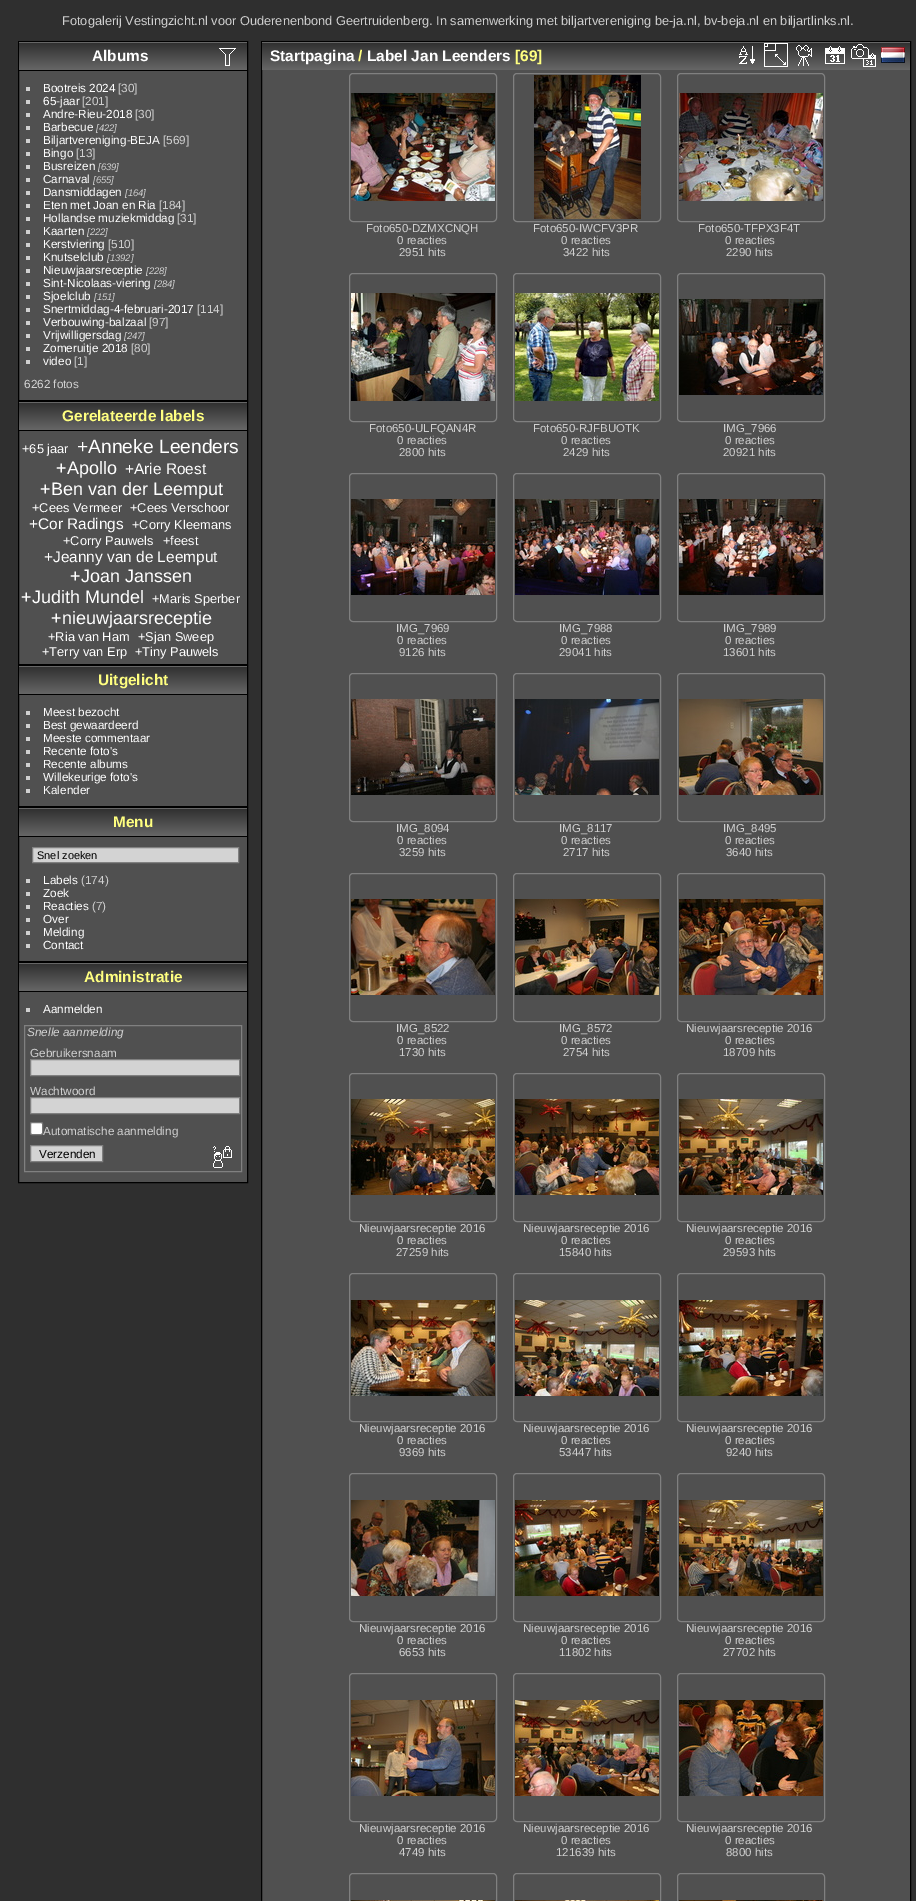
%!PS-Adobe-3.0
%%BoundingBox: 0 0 916 1901
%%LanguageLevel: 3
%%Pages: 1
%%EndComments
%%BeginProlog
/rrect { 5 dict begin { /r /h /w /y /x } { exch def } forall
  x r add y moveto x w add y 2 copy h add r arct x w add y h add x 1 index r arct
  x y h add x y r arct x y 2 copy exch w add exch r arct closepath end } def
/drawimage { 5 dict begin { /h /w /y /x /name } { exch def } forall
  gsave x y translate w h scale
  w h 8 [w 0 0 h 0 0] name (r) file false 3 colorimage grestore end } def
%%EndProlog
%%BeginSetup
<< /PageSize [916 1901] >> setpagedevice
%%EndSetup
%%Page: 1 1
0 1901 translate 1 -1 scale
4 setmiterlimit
0.184 setgray
0 0 916 1901 rectfill
0.314 setgray
19 71 228 329 rectfill
0 setgray
18.5 41.5 229 359 rectstroke
(images/1.raw) 19 42 228 28 drawimage
19 70 228 1 rectfill
(images/2.raw) 219 48 17 18 drawimage
0.816 setgray
26 87 4 4 rectfill
26 100 4 4 rectfill
26 113 4 4 rectfill
26 126 4 4 rectfill
26 139 4 4 rectfill
26 152 4 4 rectfill
26 165 4 4 rectfill
26 178 4 4 rectfill
26 191 4 4 rectfill
26 204 4 4 rectfill
26 217 4 4 rectfill
26 230 4 4 rectfill
26 243 4 4 rectfill
26 256 4 4 rectfill
26 269 4 4 rectfill
26 282 4 4 rectfill
26 295 4 4 rectfill
26 308 4 4 rectfill
26 321 4 4 rectfill
26 334 4 4 rectfill
26 347 4 4 rectfill
26 360 4 4 rectfill
0.314 setgray
19 431 228 233 rectfill
0 setgray
18.5 401.5 229 263 rectstroke
(images/1.raw) 19 402 228 28 drawimage
19 430 228 1 rectfill
0.314 setgray
19 695 228 111 rectfill
0 setgray
18.5 665.5 229 141 rectstroke
(images/1.raw) 19 666 228 28 drawimage
19 694 228 1 rectfill
0.816 setgray
26 711 4 4 rectfill
26 724 4 4 rectfill
26 737 4 4 rectfill
26 750 4 4 rectfill
26 763 4 4 rectfill
26 776 4 4 rectfill
26 789 4 4 rectfill
0.314 setgray
19 837 228 124 rectfill
0 setgray
18.5 807.5 229 154 rectstroke
(images/1.raw) 19 808 228 28 drawimage
19 836 228 1 rectfill
0.827 setgray
newpath 32.5 847.5 moveto 238.5 847.5 lineto 238.5 862.5 lineto 32.5 862.5 lineto closepath gsave fill grestore
0.502 setgray
stroke
0.816 setgray
26 879 4 4 rectfill
26 892 4 4 rectfill
26 905 4 4 rectfill
26 918 4 4 rectfill
26 931 4 4 rectfill
26 944 4 4 rectfill
0.314 setgray
19 992 228 190 rectfill
0 setgray
18.5 962.5 229 220 rectstroke
(images/1.raw) 19 963 228 28 drawimage
19 991 228 1 rectfill
0.816 setgray
26 1008 4 4 rectfill
0.502 setgray
24.5 1025.5 217 146 rectstroke
0.827 setgray
newpath 30.5 1059.5 moveto 239.5 1059.5 lineto 239.5 1075.5 lineto 30.5 1075.5 lineto closepath gsave fill grestore
0.502 setgray
stroke
0.827 setgray
newpath 30.5 1097.5 moveto 239.5 1097.5 lineto 239.5 1113.5 lineto 30.5 1113.5 lineto closepath gsave fill grestore
0.502 setgray
stroke
1 setgray
30.5 1122.5 12 12 1.5 rrect gsave fill grestore
0.463 setgray
stroke
0.827 setgray
newpath 30.5 1145.5 moveto 102.5 1145.5 lineto 102.5 1161.5 lineto 30.5 1161.5 lineto closepath gsave fill grestore
0.502 setgray
stroke
(images/3.raw) 213 1146 19 22 drawimage
0.314 setgray
262 70 648 1831 rectfill
0 setgray
261.5 41.5 649 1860 rectstroke
(images/4.raw) 262 42 648 28 drawimage
(images/5.raw) 739 46 16 18 drawimage
(images/6.raw) 764 43 24 24 drawimage
(images/7.raw) 796 45 16 21 drawimage
(images/8.raw) 825 46 20 18 drawimage
(images/9.raw) 851 44 25 23 drawimage
(images/10.raw) 881 47 24 16 drawimage
0.502 setgray
349.5 73.5 147 148 3.5 rrect stroke
(images/11.raw) 351 93 144 108 drawimage
513.5 73.5 147 148 3.5 rrect stroke
(images/12.raw) 534 75 107 144 drawimage
677.5 73.5 147 148 3.5 rrect stroke
(images/13.raw) 679 93 144 108 drawimage
349.5 273.5 147 148 3.5 rrect stroke
(images/14.raw) 351 293 144 108 drawimage
513.5 273.5 147 148 3.5 rrect stroke
(images/15.raw) 515 293 144 108 drawimage
677.5 273.5 147 148 3.5 rrect stroke
(images/16.raw) 679 299 144 96 drawimage
349.5 473.5 147 148 3.5 rrect stroke
(images/17.raw) 351 499 144 96 drawimage
513.5 473.5 147 148 3.5 rrect stroke
(images/18.raw) 515 499 144 96 drawimage
677.5 473.5 147 148 3.5 rrect stroke
(images/19.raw) 679 499 144 96 drawimage
349.5 673.5 147 148 3.5 rrect stroke
(images/20.raw) 351 699 144 96 drawimage
513.5 673.5 147 148 3.5 rrect stroke
(images/21.raw) 515 699 144 96 drawimage
677.5 673.5 147 148 3.5 rrect stroke
(images/22.raw) 679 699 144 96 drawimage
349.5 873.5 147 148 3.5 rrect stroke
(images/23.raw) 351 899 144 96 drawimage
513.5 873.5 147 148 3.5 rrect stroke
(images/24.raw) 515 899 144 96 drawimage
677.5 873.5 147 148 3.5 rrect stroke
(images/25.raw) 679 899 144 96 drawimage
349.5 1073.5 147 148 3.5 rrect stroke
(images/26.raw) 351 1099 144 96 drawimage
513.5 1073.5 147 148 3.5 rrect stroke
(images/27.raw) 515 1099 144 96 drawimage
677.5 1073.5 147 148 3.5 rrect stroke
(images/28.raw) 679 1099 144 96 drawimage
349.5 1273.5 147 148 3.5 rrect stroke
(images/29.raw) 351 1300 144 96 drawimage
513.5 1273.5 147 148 3.5 rrect stroke
(images/30.raw) 515 1300 144 96 drawimage
677.5 1273.5 147 148 3.5 rrect stroke
(images/31.raw) 679 1300 144 96 drawimage
349.5 1473.5 147 148 3.5 rrect stroke
(images/32.raw) 351 1500 144 96 drawimage
513.5 1473.5 147 148 3.5 rrect stroke
(images/33.raw) 515 1500 144 96 drawimage
677.5 1473.5 147 148 3.5 rrect stroke
(images/34.raw) 679 1500 144 96 drawimage
349.5 1673.5 147 148 3.5 rrect stroke
(images/35.raw) 351 1700 144 96 drawimage
513.5 1673.5 147 148 3.5 rrect stroke
(images/36.raw) 515 1700 144 96 drawimage
677.5 1673.5 147 148 3.5 rrect stroke
(images/37.raw) 679 1700 144 96 drawimage
349.5 1873.5 147 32 3.5 rrect stroke
(images/38.raw) 351 1900 144 1 drawimage
513.5 1873.5 147 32 3.5 rrect stroke
(images/39.raw) 515 1900 144 1 drawimage
677.5 1873.5 147 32 3.5 rrect stroke
(images/40.raw) 679 1900 144 1 drawimage
/LiberationSans-Regular [12.8 0 0 -12.8 0 0] selectfont
0.816 setgray
62 25 moveto (Fotogalerij Vestingzicht.nl voor Ouderenenbond Geertruidenberg. In samenwerking met biljartvereniging be-ja.nl, bv-beja.nl en biljartlinks.nl.) show
/LiberationSans-Bold [15.4 0 0 -15.4 0 0] selectfont
1 setgray
92 61 moveto (Albums) show
/LiberationSans-Regular [11.75 0 0 -11.75 0 0] selectfont
43 92 moveto (Bootreis 2024) show
0.816 setgray
118 92 moveto ([30]) show
1 setgray
43 105 moveto (65-jaar) show
0.816 setgray
82 105 moveto ([201]) show
1 setgray
43 118 moveto (Andre-Rieu-2018) show
0.816 setgray
135 118 moveto ([30]) show
1 setgray
43 131 moveto (Barbecue) show
/LiberationSans-Italic [9.5 0 0 -9.5 0 0] selectfont
0.816 setgray
96 131 moveto ([422]) show
/LiberationSans-Regular [11.75 0 0 -11.75 0 0] selectfont
1 setgray
43 144 moveto (Biljartvereniging-BEJA) show
0.816 setgray
163 144 moveto ([569]) show
1 setgray
43 157 moveto (Bingo) show
0.816 setgray
76 157 moveto ([13]) show
1 setgray
43 170 moveto (Busreizen) show
/LiberationSans-Italic [9.5 0 0 -9.5 0 0] selectfont
0.816 setgray
98 170 moveto ([639]) show
/LiberationSans-Regular [11.75 0 0 -11.75 0 0] selectfont
1 setgray
43 183 moveto (Carnaval) show
/LiberationSans-Italic [9.5 0 0 -9.5 0 0] selectfont
0.816 setgray
93 183 moveto ([655]) show
/LiberationSans-Regular [11.75 0 0 -11.75 0 0] selectfont
1 setgray
43 196 moveto (Dansmiddagen) show
/LiberationSans-Italic [9.5 0 0 -9.5 0 0] selectfont
0.816 setgray
125 196 moveto ([164]) show
/LiberationSans-Regular [11.75 0 0 -11.75 0 0] selectfont
1 setgray
43 209 moveto (Eten met Joan en Ria) show
0.816 setgray
159 209 moveto ([184]) show
1 setgray
43 222 moveto (Hollandse muziekmiddag) show
0.816 setgray
177 222 moveto ([31]) show
1 setgray
43 235 moveto (Kaarten) show
/LiberationSans-Italic [9.5 0 0 -9.5 0 0] selectfont
0.816 setgray
87 235 moveto ([222]) show
/LiberationSans-Regular [11.75 0 0 -11.75 0 0] selectfont
1 setgray
43 248 moveto (Kerstviering) show
0.816 setgray
108 248 moveto ([510]) show
1 setgray
43 261 moveto (Knutselclub) show
/LiberationSans-Italic [9.5 0 0 -9.5 0 0] selectfont
0.816 setgray
107 261 moveto ([1392]) show
/LiberationSans-Regular [11.75 0 0 -11.75 0 0] selectfont
1 setgray
43 274 moveto (Nieuwjaarsreceptie) show
/LiberationSans-Italic [9.5 0 0 -9.5 0 0] selectfont
0.816 setgray
146 274 moveto ([228]) show
/LiberationSans-Regular [11.75 0 0 -11.75 0 0] selectfont
1 setgray
43 287 moveto (Sint-Nicolaas-viering) show
/LiberationSans-Italic [9.5 0 0 -9.5 0 0] selectfont
0.816 setgray
154 287 moveto ([284]) show
/LiberationSans-Regular [11.75 0 0 -11.75 0 0] selectfont
1 setgray
43 300 moveto (Sjoelclub) show
/LiberationSans-Italic [9.5 0 0 -9.5 0 0] selectfont
0.816 setgray
94 300 moveto ([151]) show
/LiberationSans-Regular [11.75 0 0 -11.75 0 0] selectfont
1 setgray
43 313 moveto (Snertmiddag-4-februari-2017) show
0.816 setgray
197 313 moveto ([114]) show
1 setgray
43 326 moveto (Verbouwing-balzaal) show
0.816 setgray
149 326 moveto ([97]) show
1 setgray
43 339 moveto (Vrijwilligersdag) show
/LiberationSans-Italic [9.5 0 0 -9.5 0 0] selectfont
0.816 setgray
124 339 moveto ([247]) show
/LiberationSans-Regular [11.75 0 0 -11.75 0 0] selectfont
1 setgray
43 352 moveto (Zomeruitje 2018) show
0.816 setgray
131 352 moveto ([80]) show
1 setgray
43 365 moveto (video) show
0.816 setgray
74 365 moveto ([1]) show
24 388 moveto (6262 fotos) show
/LiberationSans-Bold [15.4 0 0 -15.4 0 0] selectfont
1 1 0.502 setrgbcolor
62 421 moveto (Gerelateerde labels) show
/LiberationSans-Regular [12.8 0 0 -12.8 0 0] selectfont
1 setgray
22 453 moveto (+65 jaar) show
/LiberationSans-Regular [19.25 0 0 -19.25 0 0] selectfont
77 453 moveto (+Anneke Leenders) show
/LiberationSans-Regular [18 0 0 -18 0 0] selectfont
56 474 moveto (+Apollo) show
/LiberationSans-Regular [15.4 0 0 -15.4 0 0] selectfont
125 474 moveto (+Arie Roest) show
/LiberationSans-Regular [18 0 0 -18 0 0] selectfont
40 495 moveto (+Ben van der Leemput) show
/LiberationSans-Regular [12.8 0 0 -12.8 0 0] selectfont
32 512 moveto (+Cees Vermeer) show
130 512 moveto (+Cees Verschoor) show
/LiberationSans-Regular [15.4 0 0 -15.4 0 0] selectfont
29 529 moveto (+Cor Radings) show
/LiberationSans-Regular [12.8 0 0 -12.8 0 0] selectfont
132 529 moveto (+Corry Kleemans) show
63 545 moveto (+Corry Pauwels) show
163 545 moveto (+feest) show
/LiberationSans-Regular [15.4 0 0 -15.4 0 0] selectfont
44 562 moveto (+Jeanny van de Leemput) show
/LiberationSans-Regular [18 0 0 -18 0 0] selectfont
70 582 moveto (+Joan Janssen) show
21 603 moveto (+Judith Mundel) show
/LiberationSans-Regular [12.8 0 0 -12.8 0 0] selectfont
152 603 moveto (+Maris Sperber) show
/LiberationSans-Regular [18 0 0 -18 0 0] selectfont
51 624 moveto (+nieuwjaarsreceptie) show
/LiberationSans-Regular [12.8 0 0 -12.8 0 0] selectfont
48 641 moveto (+Ria van Ham) show
138 641 moveto (+Sjan Sweep) show
42 656 moveto (+Terry van Erp) show
135 656 moveto (+Tiny Pauwels) show
/LiberationSans-Bold [15.4 0 0 -15.4 0 0] selectfont
1 1 0.502 setrgbcolor
98 685 moveto (Uitgelicht) show
/LiberationSans-Regular [11.75 0 0 -11.75 0 0] selectfont
1 setgray
43 716 moveto (Meest bezocht) show
43 729 moveto (Best gewaardeerd) show
43 742 moveto (Meeste commentaar) show
43 755 moveto (Recente foto's) show
43 768 moveto (Recente albums) show
43 781 moveto (Willekeurige foto's) show
43 794 moveto (Kalender) show
/LiberationSans-Bold [15.4 0 0 -15.4 0 0] selectfont
1 1 0.502 setrgbcolor
113 827 moveto (Menu) show
/LiberationSans-Regular [11 0 0 -11 0 0] selectfont
0 setgray
37 859 moveto (Snel zoeken) show
/LiberationSans-Regular [11.75 0 0 -11.75 0 0] selectfont
1 setgray
43 884 moveto (Labels) show
0.816 setgray
81 884 moveto (\(174\)) show
1 setgray
43 897 moveto (Zoek) show
43 910 moveto (Reacties) show
0.816 setgray
92 910 moveto (\(7\)) show
1 setgray
43 923 moveto (Over) show
43 936 moveto (Melding) show
43 949 moveto (Contact) show
/LiberationSans-Bold [15.4 0 0 -15.4 0 0] selectfont
1 1 0.502 setrgbcolor
84 982 moveto (Administratie) show
/LiberationSans-Regular [11.75 0 0 -11.75 0 0] selectfont
1 setgray
43 1013 moveto (Aanmelden) show
/LiberationSans-Italic [11.75 0 0 -11.75 0 0] selectfont
0.816 setgray
27 1036 moveto (Snelle aanmelding) show
/LiberationSans-Regular [11.75 0 0 -11.75 0 0] selectfont
30 1057 moveto (Gebruikersnaam) show
30 1095 moveto (Wachtwoord) show
43 1135 moveto (Automatische aanmelding) show
0 setgray
39 1158 moveto (Verzenden) show
/LiberationSans-Bold [15.4 0 0 -15.4 0 0] selectfont
1 setgray
270 61 moveto (Startpagina) show
1 1 0.502 setrgbcolor
358 61 moveto (/) show
1 setgray
367 61 moveto (Label Jan Leenders) show
1 1 0.502 setrgbcolor
515 61 moveto ([69]) show
/LiberationSans-Regular [11.5 0 0 -11.5 0 0] selectfont
0.816 setgray
366 232 moveto (Foto650-DZMXCNQH) show
397 244 moveto (0 reacties) show
399 256 moveto (2951 hits) show
533 232 moveto (Foto650-IWCFV3PR) show
561 244 moveto (0 reacties) show
563 256 moveto (3422 hits) show
698 232 moveto (Foto650-TFPX3F4T) show
725 244 moveto (0 reacties) show
726 256 moveto (2290 hits) show
369 432 moveto (Foto650-ULFQAN4R) show
397 444 moveto (0 reacties) show
399 456 moveto (2800 hits) show
533 432 moveto (Foto650-RJFBUOTK) show
561 444 moveto (0 reacties) show
563 456 moveto (2429 hits) show
723 432 moveto (IMG_7966) show
725 444 moveto (0 reacties) show
723 456 moveto (20921 hits) show
396 632 moveto (IMG_7969) show
397 644 moveto (0 reacties) show
399 656 moveto (9126 hits) show
559 632 moveto (IMG_7988) show
561 644 moveto (0 reacties) show
559 656 moveto (29041 hits) show
723 632 moveto (IMG_7989) show
725 644 moveto (0 reacties) show
723 656 moveto (13601 hits) show
396 832 moveto (IMG_8094) show
397 844 moveto (0 reacties) show
399 856 moveto (3259 hits) show
559 832 moveto (IMG_8117) show
561 844 moveto (0 reacties) show
563 856 moveto (2717 hits) show
723 832 moveto (IMG_8495) show
725 844 moveto (0 reacties) show
726 856 moveto (3640 hits) show
396 1032 moveto (IMG_8522) show
397 1044 moveto (0 reacties) show
399 1056 moveto (1730 hits) show
559 1032 moveto (IMG_8572) show
561 1044 moveto (0 reacties) show
563 1056 moveto (2754 hits) show
686 1032 moveto (Nieuwjaarsreceptie 2016) show
725 1044 moveto (0 reacties) show
723 1056 moveto (18709 hits) show
359 1232 moveto (Nieuwjaarsreceptie 2016) show
397 1244 moveto (0 reacties) show
396 1256 moveto (27259 hits) show
523 1232 moveto (Nieuwjaarsreceptie 2016) show
561 1244 moveto (0 reacties) show
559 1256 moveto (15840 hits) show
686 1232 moveto (Nieuwjaarsreceptie 2016) show
725 1244 moveto (0 reacties) show
723 1256 moveto (29593 hits) show
359 1432 moveto (Nieuwjaarsreceptie 2016) show
397 1444 moveto (0 reacties) show
399 1456 moveto (9369 hits) show
523 1432 moveto (Nieuwjaarsreceptie 2016) show
561 1444 moveto (0 reacties) show
559 1456 moveto (53447 hits) show
686 1432 moveto (Nieuwjaarsreceptie 2016) show
725 1444 moveto (0 reacties) show
726 1456 moveto (9240 hits) show
359 1632 moveto (Nieuwjaarsreceptie 2016) show
397 1644 moveto (0 reacties) show
399 1656 moveto (6653 hits) show
523 1632 moveto (Nieuwjaarsreceptie 2016) show
561 1644 moveto (0 reacties) show
559 1656 moveto (11802 hits) show
686 1632 moveto (Nieuwjaarsreceptie 2016) show
725 1644 moveto (0 reacties) show
723 1656 moveto (27702 hits) show
359 1832 moveto (Nieuwjaarsreceptie 2016) show
397 1844 moveto (0 reacties) show
399 1856 moveto (4749 hits) show
523 1832 moveto (Nieuwjaarsreceptie 2016) show
561 1844 moveto (0 reacties) show
556 1856 moveto (121639 hits) show
686 1832 moveto (Nieuwjaarsreceptie 2016) show
725 1844 moveto (0 reacties) show
726 1856 moveto (8800 hits) show
showpage
%%EOF
